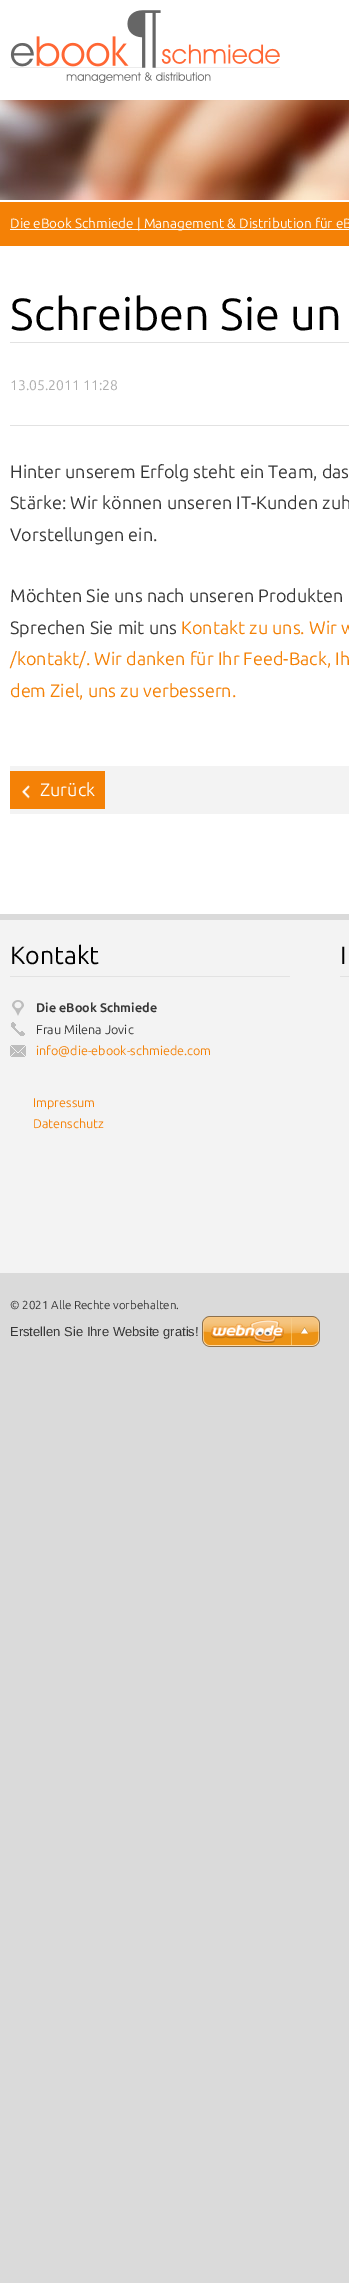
%!PS-Adobe-3.0
%%BoundingBox: 0 0 349 2283
%%LanguageLevel: 3
%%Pages: 1
%%EndComments
%%BeginProlog
/drawimage { 5 dict begin { /h /w /y /x /name } { exch def } forall
  gsave x y translate w h scale
  w h 8 [w 0 0 h 0 0] name (r) file false 3 colorimage grestore end } def
%%EndProlog
%%BeginSetup
<< /PageSize [349 2283] >> setpagedevice
%%EndSetup
%%Page: 1 1
0 2283 translate 1 -1 scale
4 setmiterlimit
0.855 setgray
0 0 349 2283 rectfill
1 setgray
0 0 349 914 rectfill
(images/1.raw) 10 10 270 73 drawimage
(images/2.raw) 0 100 349 100 drawimage
0.957 0.506 0.024 setrgbcolor
0 202 349 44 rectfill
1 setgray
10 229 339 1 rectfill
0.886 setgray
10 342 339 1 rectfill
10 425 339 1 rectfill
0.953 setgray
10 766 339 48 rectfill
0.957 0.506 0.024 setrgbcolor
10 771 95 38 rectfill
(images/3.raw) 22 785 8 14 drawimage
0.953 setgray
0 920 349 353 rectfill
0.886 setgray
10 976 280 1 rectfill
(images/4.raw) 12 1000 12 16 drawimage
(images/5.raw) 11 1022 14 14 drawimage
(images/6.raw) 10 1045 16 12 drawimage
340 976 9 1 rectfill
(images/7.raw) 202 1316 118 31 drawimage
/Ubuntu-Regular [13.5 0 0 -13.5 0 0] selectfont
1 setgray
10 228 moveto (Die eBook Schmiede | Management & Distribution für eB) show
/Ubuntu-Regular [45 0 0 -45 0 0] selectfont
0 setgray
10 330 moveto (Schreiben Sie un) show
/Ubuntu-Regular [14 0 0 -14 0 0] selectfont
0.682 setgray
10 390 moveto (13.05.2011 11:28) show
/Ubuntu-Regular [18 0 0 -18 0 0] selectfont
0.212 setgray
10 478 moveto (Hinter unserem Erfolg steht ein Team, das) show
10 509 moveto (Stärke: Wir können unseren IT-Kunden zuh) show
10 541 moveto (Vorstellungen ein.) show
10 602 moveto (Möchten Sie uns nach unseren Produkten) show
10 634 moveto (Sprechen Sie mit uns) show
0.957 0.506 0.024 setrgbcolor
181 634 moveto (Kontakt zu uns. Wir w) show
10 665 moveto (/kontakt/. Wir danken für Ihr Feed-Back, Ih) show
10 697 moveto (dem Ziel, uns zu verbessern.) show
1 setgray
40 796 moveto (Zurück) show
/Ubuntu-Regular [25 0 0 -25 0 0] selectfont
0 setgray
10 964 moveto (Kontakt) show
/Ubuntu-Bold [12.6 0 0 -12.6 0 0] selectfont
0.212 setgray
36 1012 moveto (Die eBook Schmiede) show
/Ubuntu-Regular [12.6 0 0 -12.6 0 0] selectfont
36 1034 moveto (Frau Milena Jovic) show
0.957 0.506 0.024 setrgbcolor
36 1055 moveto (info@die-ebook-schmiede.com) show
33 1107 moveto (Impressum) show
33 1128 moveto (Datenschutz) show
/Ubuntu-Regular [25 0 0 -25 0 0] selectfont
0 setgray
340 964 moveto (I) show
/Ubuntu-Regular [11.6 0 0 -11.6 0 0] selectfont
0.212 setgray
10 1309 moveto (© 2021 Alle Rechte vorbehalten.) show
/LiberationSans-Regular [13 0 0 -13 0 0] selectfont
10 1336 moveto (Erstellen Sie Ihre Website gratis!) show
showpage
%%EOF
